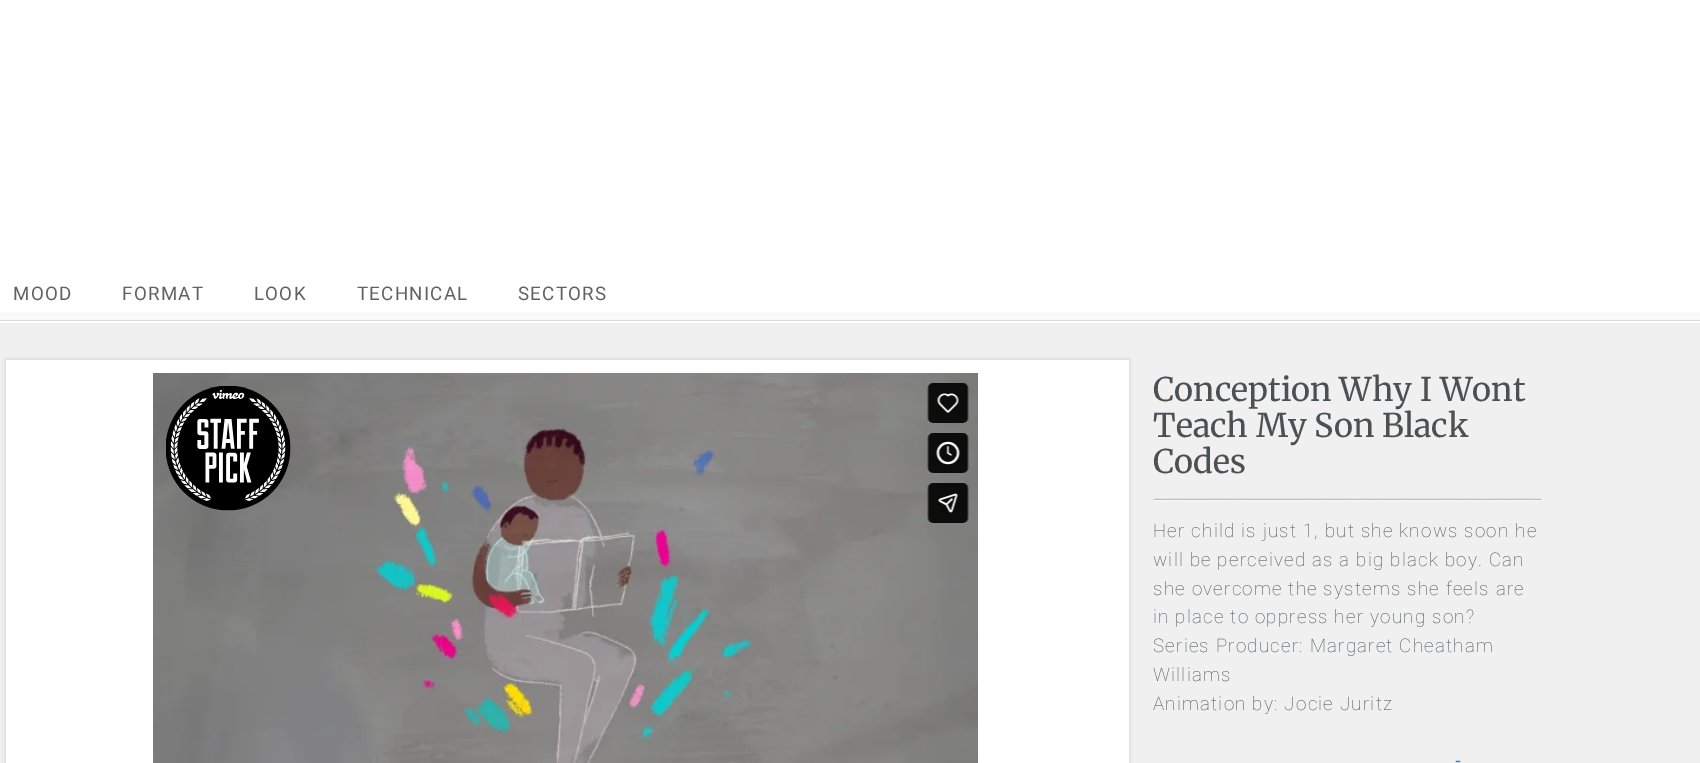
%!PS-Adobe-3.0
%%BoundingBox: 0 0 1700 763
%%LanguageLevel: 3
%%Pages: 1
%%EndComments
%%BeginProlog
/setalpha { dup .setfillconstantalpha .setstrokeconstantalpha } def
/rrect { 5 dict begin { /r /h /w /y /x } { exch def } forall
  x r add y moveto x w add y 2 copy h add r arct x w add y h add x 1 index r arct
  x y h add x y r arct x y 2 copy exch w add exch r arct closepath end } def
/softshadow { 12 dict begin { /a /b /q /h /w /y /x } { exch def } forall gsave /was 0 def
  9 -2 -9 { dup b mul 4 div /e exch def 1 sub .425 mul 2.718 exch exp 1 add a .99 .min exch div /now exch def
    1 1 now sub 1 was sub div sub setalpha /was now def
    w h .min e 2 mul add 0 gt { x e sub y e sub w e 2 mul add h e 2 mul add
      q e add b .6 mul add w h .min 2 div e add .min 0 .max rrect fill } if } for grestore end } def
/drawimage { 5 dict begin { /h /w /y /x /name } { exch def } forall
  gsave x y translate w h scale
  w h 8 [w 0 0 h 0 0] name (r) file false 3 colorimage grestore end } def
%%EndProlog
%%BeginSetup
<< /PageSize [1700 763] /PageUsesTransparency true >> setpagedevice
%%EndSetup
%%Page: 1 1
0 .pushpdf14devicefilter
0 763 translate 1 -1 scale
4 setmiterlimit
0.941 setgray
0 0 1700 763 rectfill
1 setgray
0 0 1700 323 rectfill
(images/1.raw) 0 312 1700 9 drawimage
0 setgray
6 360 1123 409 0 2 0.15 softshadow
1 setgray
6 360 1123 403 rectfill
(images/2.raw) 153 373 825 390 drawimage
(images/3.raw) 1153 498 389 4 drawimage
/Roboto-Regular [18.75 0 0 -18.75 0 0] selectfont
0.38 setgray
13 300 moveto 1.25 0 (MOOD) ashow
122 300 moveto 1.25 0 (FORMAT) ashow
254 300 moveto 1.25 0 (LOOK) ashow
357 300 moveto 1.25 0 (TECHNICAL) ashow
518 300 moveto 1.25 0 (SECTORS) ashow
/Merriweather-Regular [32.5 0 0 -32.5 0 0] selectfont
0.294 0.314 0.329 setrgbcolor
1153 401 moveto (Conception Why I Wont) show
1153 437 moveto (Teach My Son Black) show
1153 473 moveto (Codes) show
/Roboto-Thin [18.75 0 0 -18.75 0 0] selectfont
1153 537 moveto 1.25 0 (Her child is just 1, but she knows soon he) ashow
1153 566 moveto 1.25 0 (will be perceived as a big black boy. Can) ashow
1153 595 moveto 1.25 0 (she overcome the systems she feels are) ashow
1153 623 moveto 1.25 0 (in place to oppress her young son?) ashow
1153 652 moveto 1.25 0 (Series Producer: Margaret Cheatham) ashow
1153 681 moveto 1.25 0 (Williams) ashow
1153 710 moveto 1.25 0 (Animation by: Jocie Juritz) ashow
/Roboto-Medium [18 0 0 -18 0 0] selectfont
0.227 0.502 0.737 setrgbcolor
1455 767 moveto (-) show
.poppdf14devicefilter showpage
%%EOF
